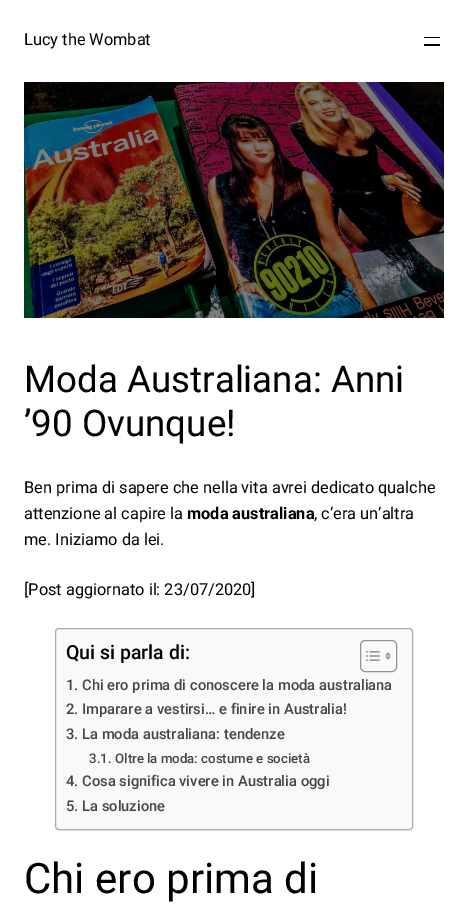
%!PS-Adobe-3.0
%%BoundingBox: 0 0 468 915
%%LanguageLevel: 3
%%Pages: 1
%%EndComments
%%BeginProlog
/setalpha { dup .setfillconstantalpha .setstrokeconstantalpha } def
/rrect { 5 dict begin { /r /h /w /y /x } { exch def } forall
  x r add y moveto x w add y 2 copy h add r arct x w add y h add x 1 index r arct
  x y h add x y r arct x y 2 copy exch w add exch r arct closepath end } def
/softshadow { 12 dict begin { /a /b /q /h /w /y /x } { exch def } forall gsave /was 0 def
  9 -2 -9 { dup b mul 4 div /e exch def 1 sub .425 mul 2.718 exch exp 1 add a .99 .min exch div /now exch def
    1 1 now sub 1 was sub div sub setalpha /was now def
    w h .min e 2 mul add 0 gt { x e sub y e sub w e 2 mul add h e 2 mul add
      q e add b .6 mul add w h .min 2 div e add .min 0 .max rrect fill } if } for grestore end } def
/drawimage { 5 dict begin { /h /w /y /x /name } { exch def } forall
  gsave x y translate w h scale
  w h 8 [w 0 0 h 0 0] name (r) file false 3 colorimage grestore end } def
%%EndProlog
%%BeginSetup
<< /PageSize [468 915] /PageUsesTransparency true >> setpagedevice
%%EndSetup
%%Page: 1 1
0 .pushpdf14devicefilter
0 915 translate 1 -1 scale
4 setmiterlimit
1 setgray
0 0 468 915 rectfill
0 setgray
424 37 16 1 rectfill
424 44 16 2 rectfill
(images/1.raw) 24 82 420 236 drawimage
55 629 358 202 4 0.5 0.05 softshadow
0.976 setgray
55.5 628.5 357 201 3.5 rrect gsave fill grestore
0.667 setgray
stroke
0.6 0.569 0.569 setrgbcolor
360.5 640.5 36 31 4.5 rrect stroke
(images/2.raw) 366 651 14 10 drawimage
(images/3.raw) 385 652 6 8 drawimage
/Roboto-Regular [16.35 0 0 -16.35 0 0] selectfont
0 setgray
24 45 moveto (Lucy the Wombat) show
/Roboto-Regular [36.75 0 0 -36.75 0 0] selectfont
24 392 moveto (Moda Australiana: Anni) show
24 436 moveto (’90 Ovunque!) show
/Roboto-Regular [16.35 0 0 -16.35 0 0] selectfont
24 493 moveto (Ben prima di sapere che nella vita avrei dedicato qualche) show
24 519 moveto (attenzione al capire la) show
/Roboto-Bold [16.35 0 0 -16.35 0 0] selectfont
187 519 moveto (moda australiana) show
/Roboto-Regular [16.35 0 0 -16.35 0 0] selectfont
314 519 moveto (, c’era un’altra) show
24 545 moveto (me. Iniziamo da lei.) show
24 595 moveto ([Post aggiornato il: 23/07/2020]) show
/Roboto-Medium [19.5 0 0 -19.5 0 0] selectfont
66 659 moveto (Qui si parla di:) show
/Roboto-Medium [14.75 0 0 -14.75 0 0] selectfont
0.267 setgray
66 690 moveto (1.) show
82 690 moveto (Chi ero prima di conoscere la moda australiana) show
66 714 moveto (2.) show
82 714 moveto (Imparare a vestirsi… e finire in Australia!) show
66 739 moveto (3.) show
82 739 moveto (La moda australiana: tendenze) show
/Roboto-Medium [13.25 0 0 -13.25 0 0] selectfont
89 763 moveto (3.1.) show
115 763 moveto (Oltre la moda: costume e società) show
/Roboto-Medium [14.75 0 0 -14.75 0 0] selectfont
66 786 moveto (4.) show
82 786 moveto (Cosa significa vivere in Australia oggi) show
66 811 moveto (5.) show
82 811 moveto (La soluzione) show
/Roboto-Regular [42 0 0 -42 0 0] selectfont
0 setgray
24 893 moveto (Chi ero prima di) show
.poppdf14devicefilter showpage
%%EOF
